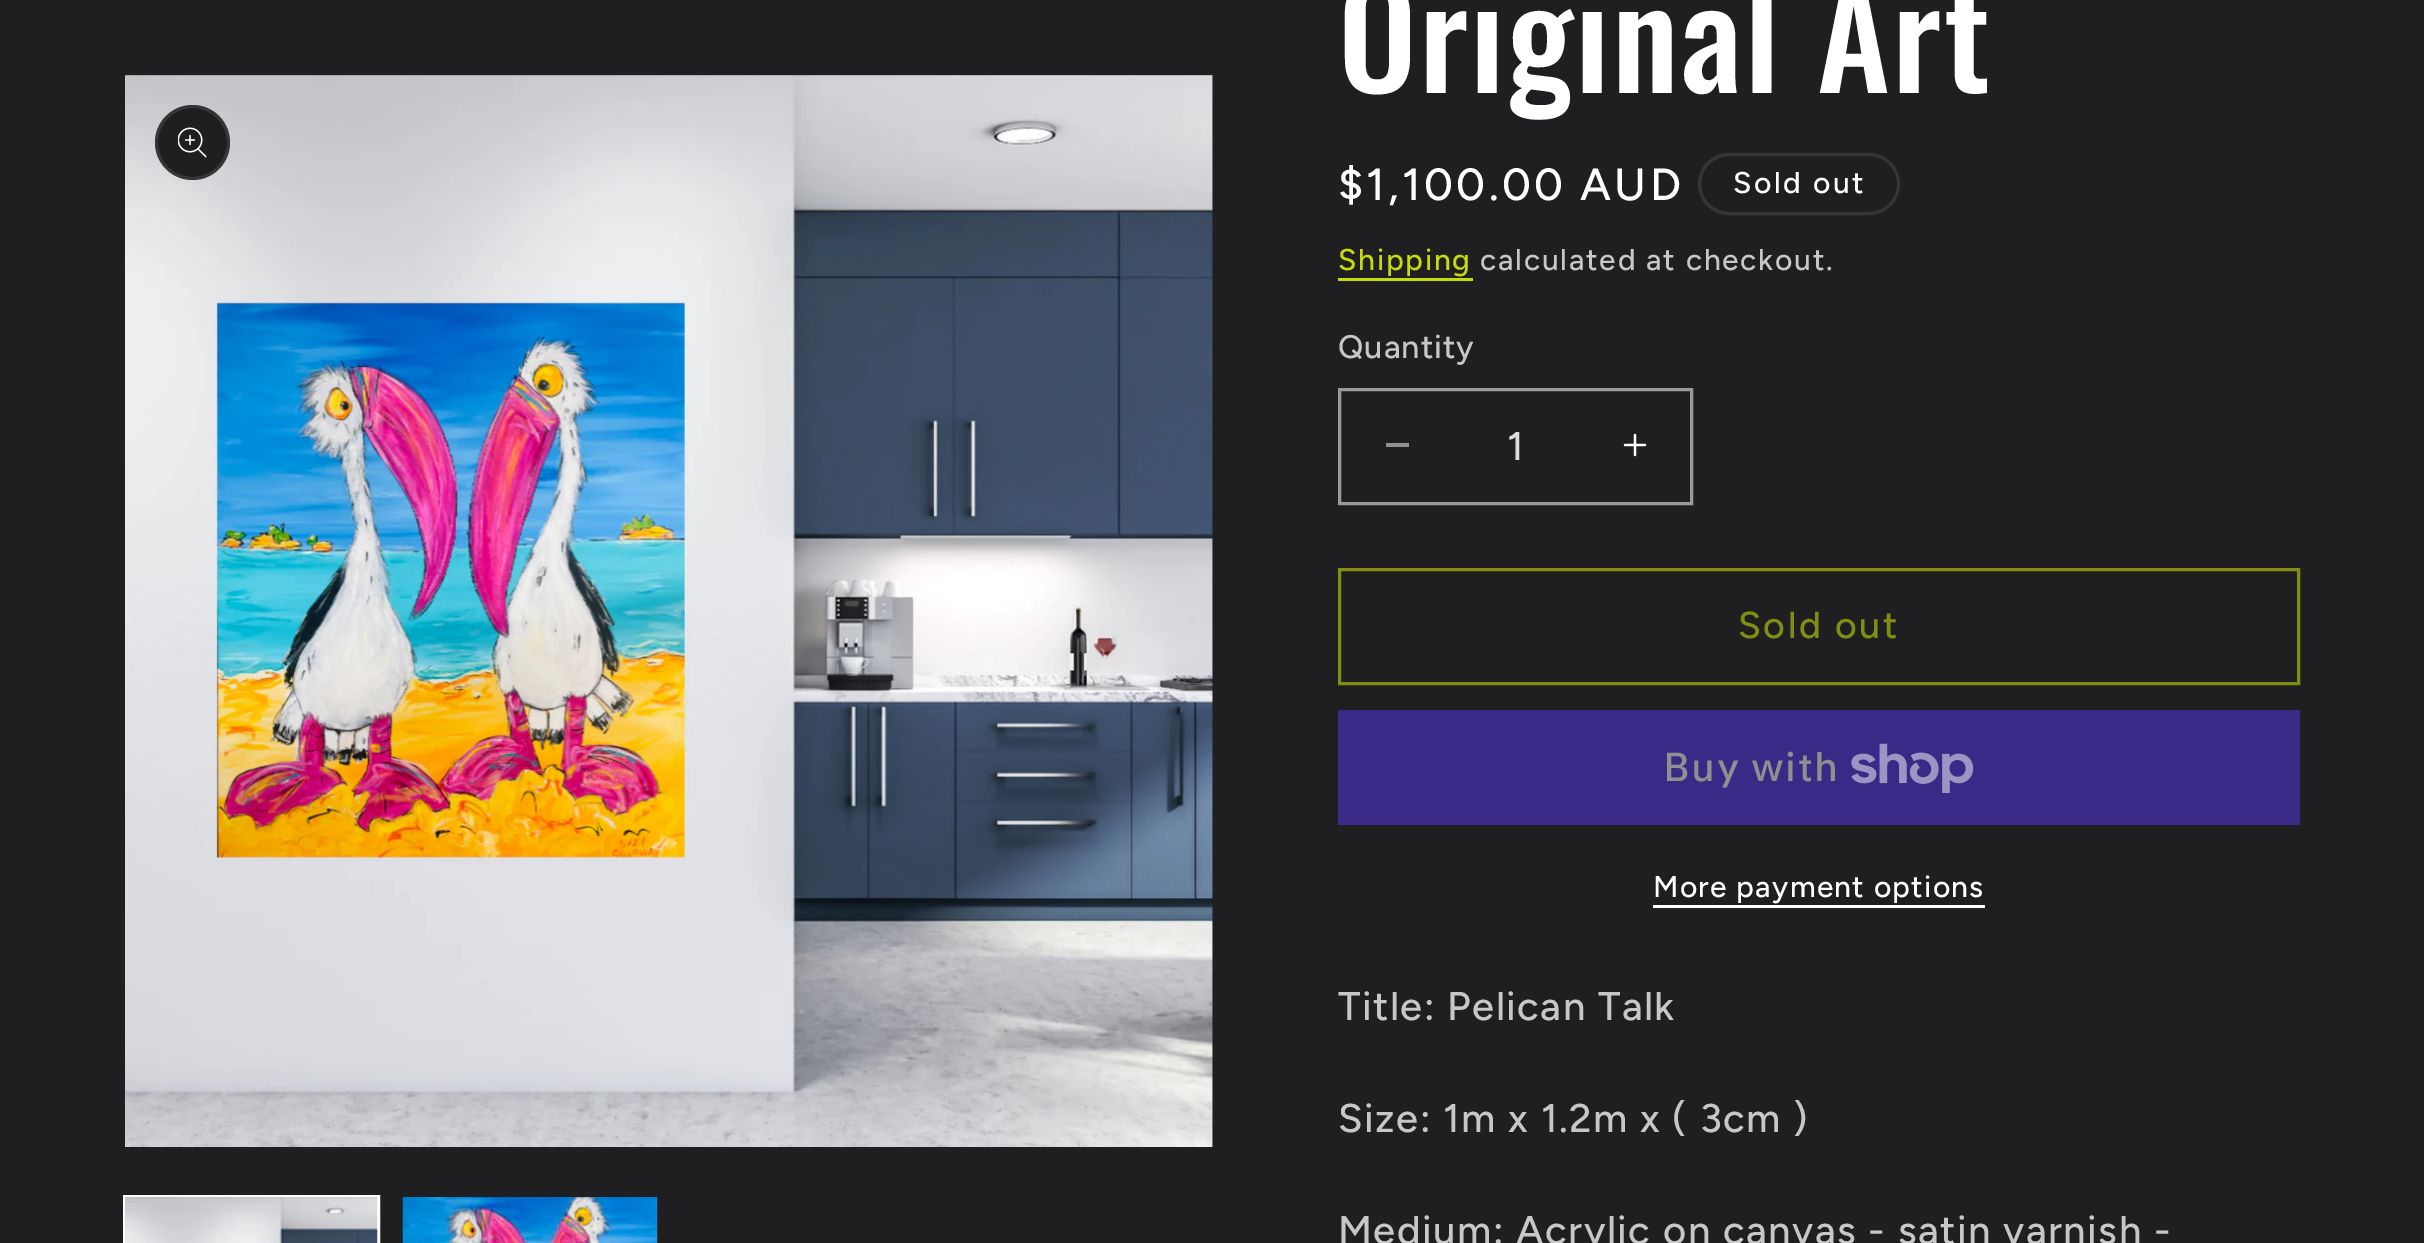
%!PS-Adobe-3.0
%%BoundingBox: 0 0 2424 1243
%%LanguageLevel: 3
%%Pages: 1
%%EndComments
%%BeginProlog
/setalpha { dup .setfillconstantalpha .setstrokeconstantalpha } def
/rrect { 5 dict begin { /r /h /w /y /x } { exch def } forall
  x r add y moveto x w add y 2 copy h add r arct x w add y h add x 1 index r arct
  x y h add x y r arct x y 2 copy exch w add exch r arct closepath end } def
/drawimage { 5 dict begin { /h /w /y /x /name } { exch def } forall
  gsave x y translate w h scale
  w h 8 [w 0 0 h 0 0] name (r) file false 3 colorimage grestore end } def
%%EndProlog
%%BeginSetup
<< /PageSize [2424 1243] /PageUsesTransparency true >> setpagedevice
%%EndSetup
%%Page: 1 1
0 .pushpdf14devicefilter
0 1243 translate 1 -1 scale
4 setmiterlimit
0.122 0.122 0.129 setrgbcolor
0 0 2424 1243 rectfill
(images/1.raw) 125 75 1088 1072 drawimage
newpath 192.5 142.5 37.5 0 360 arc closepath fill
0.1 setalpha
1 setgray
3 setlinewidth
newpath 192.5 142.5 36 0 360 arc closepath stroke
1 setalpha
(images/2.raw) 178 127 29 31 drawimage
124.5 1196.5 254 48 rectstroke
(images/3.raw) 125 1197 253 46 drawimage
(images/4.raw) 402 1197 256 46 drawimage
0.208 0.208 0.216 setrgbcolor
1699.5 154.5 199 59 29.5 rrect stroke
0.776 0.859 0.027 setrgbcolor
1338 278 135 3 rectfill
0.561 0.561 0.565 setrgbcolor
1386 443 23 4 rectfill
(images/5.raw) 1623 433 24 24 drawimage
0.604 0.604 0.608 setrgbcolor
1339.5 389.5 352 114 rectstroke
0.506 0.557 0.071 setrgbcolor
1339.5 569.5 959 114 rectstroke
0.227 0.161 0.525 setrgbcolor
1338 710 962 115 rectfill
(images/6.raw) 1851 743 123 50 drawimage
1 setgray
1653 905 332 3 rectfill
/Oswald-Medium [140 0 0 -140 0 0] selectfont
1338 93 moveto 2.1 0 (Original Art) ashow
/Figtree-Medium [45 0 0 -45 0 0] selectfont
1338 200 moveto 3.25 0 ($1,100.00 AUD) ashow
/Figtree-Medium [30 0 0 -30 0 0] selectfont
1733 193 moveto 2.5 0 (Sold out) ashow
0.776 0.859 0.027 setrgbcolor
1338 270 moveto 1.75 0 (Shipping) ashow
0.78 0.78 0.784 setrgbcolor
1480 270 moveto 1.75 0 (calculated at checkout.) ashow
/Figtree-Medium [32.5 0 0 -32.5 0 0] selectfont
1338 358 moveto 1 0 (Quantity) ashow
/Figtree-Medium [40 0 0 -40 0 0] selectfont
0.867 0.867 0.871 setrgbcolor
1507 460 moveto (1) show
/Figtree-Medium [37.5 0 0 -37.5 0 0] selectfont
0.506 0.557 0.071 setrgbcolor
1738 638 moveto 2.5 0 (Sold out) ashow
/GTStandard-Medium [40 0 0 -40 0 0] selectfont
0.561 0.561 0.565 setrgbcolor
1663 781 moveto 1.5 0 (Buy with) ashow
/Figtree-Medium [30 0 0 -30 0 0] selectfont
1 setgray
1653 897 moveto 1.25 0 (More payment options) ashow
/Figtree-Medium [40 0 0 -40 0 0] selectfont
0.78 0.78 0.784 setrgbcolor
1338 1020 moveto 1.5 0 (Title: Pelican Talk) ashow
1338 1132 moveto 1.5 0 (Size: 1m x 1.2m x \( 3cm \)) ashow
1338 1244 moveto 1.5 0 (Medium: Acrylic on canvas - satin varnish -) ashow
.poppdf14devicefilter showpage
%%EOF
